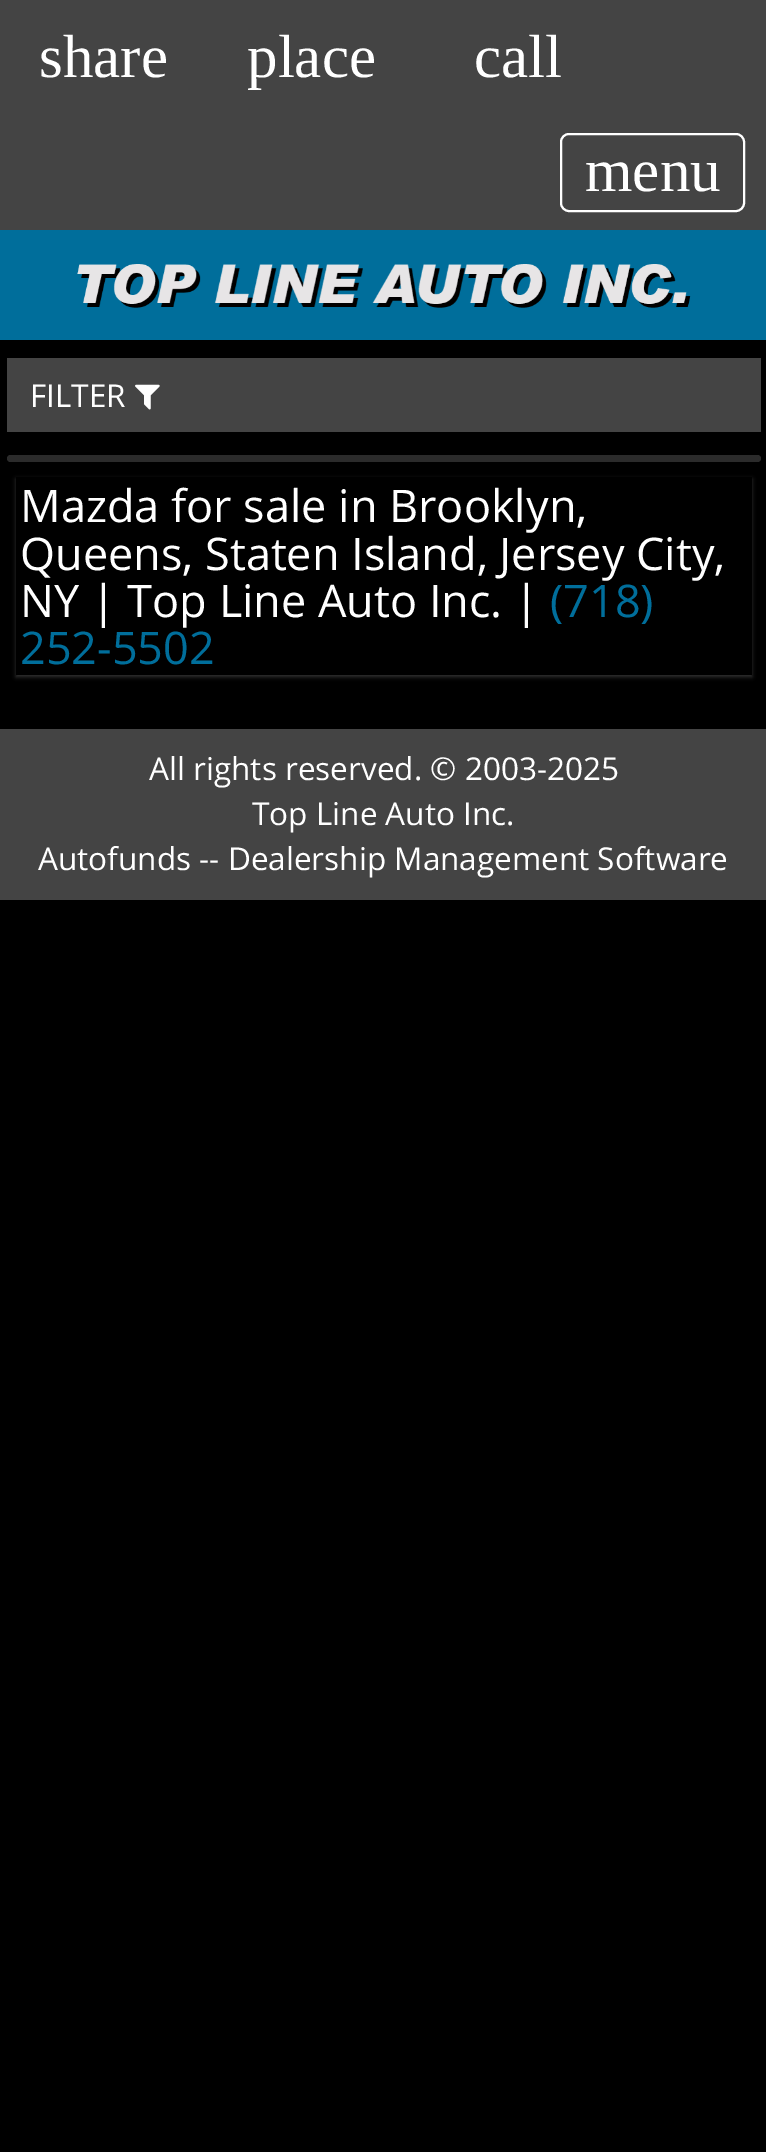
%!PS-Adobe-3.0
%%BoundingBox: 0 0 766 2152
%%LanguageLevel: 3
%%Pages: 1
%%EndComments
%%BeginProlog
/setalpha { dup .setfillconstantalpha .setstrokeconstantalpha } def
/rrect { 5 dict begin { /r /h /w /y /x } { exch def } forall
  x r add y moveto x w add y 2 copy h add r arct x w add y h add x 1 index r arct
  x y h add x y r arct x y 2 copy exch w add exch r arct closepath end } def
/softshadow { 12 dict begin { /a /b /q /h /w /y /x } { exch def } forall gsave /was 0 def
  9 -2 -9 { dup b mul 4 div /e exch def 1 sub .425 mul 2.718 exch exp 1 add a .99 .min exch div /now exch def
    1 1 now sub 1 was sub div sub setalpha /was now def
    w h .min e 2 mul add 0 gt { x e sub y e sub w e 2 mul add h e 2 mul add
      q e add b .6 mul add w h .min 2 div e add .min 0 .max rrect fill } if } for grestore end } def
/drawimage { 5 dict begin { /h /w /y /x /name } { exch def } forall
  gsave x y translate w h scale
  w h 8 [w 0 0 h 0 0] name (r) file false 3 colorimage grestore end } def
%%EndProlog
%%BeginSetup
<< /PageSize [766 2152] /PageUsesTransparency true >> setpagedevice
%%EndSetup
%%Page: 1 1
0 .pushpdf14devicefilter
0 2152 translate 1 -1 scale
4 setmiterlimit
0 setgray
0 0 766 2152 rectfill
0.267 setgray
0 0 766 230 rectfill
1 setgray
2 setlinewidth
561 134 183 77 8 rrect stroke
0 0.431 0.608 setrgbcolor
0 230 766 110 rectfill
(images/1.raw) 77 264 614 44 drawimage
0.267 setgray
7 358 754 74 rectfill
(images/2.raw) 135 384 25 26 drawimage
0.169 setgray
7 455 754 7 3.5 rrect fill
0.839 setgray
16 479 736 198 0 2 0.24 softshadow
0 setgray
16 477 736 198 rectfill
0.267 setgray
0 729 766 171 rectfill
/LiberationSerif-Regular [61 0 0 -61 0 0] selectfont
1 setgray
39 77 moveto (share) show
247 77 moveto (place) show
474 77 moveto (call) show
585 191 moveto (menu) show
/OpenSans-Regular [31.5 0 0 -31.5 0 0] selectfont
30 407 moveto (FILTER) show
/OpenSans-Regular [45 0 0 -45 0 0] selectfont
20 522 moveto (Mazda for sale in Brooklyn,) show
20 570 moveto (Queens, Staten Island, Jersey City,) show
20 617 moveto (NY | Top Line Auto Inc. |) show
0 0.431 0.608 setrgbcolor
550 617 moveto (\(718\)) show
20 664 moveto (252-5502) show
/OpenSans-Regular [31.5 0 0 -31.5 0 0] selectfont
1 setgray
149 780 moveto (All rights reserved. © 2003-2025) show
252 825 moveto (Top Line Auto Inc.) show
38 870 moveto (Autofunds -- Dealership Management Software) show
.poppdf14devicefilter showpage
%%EOF
